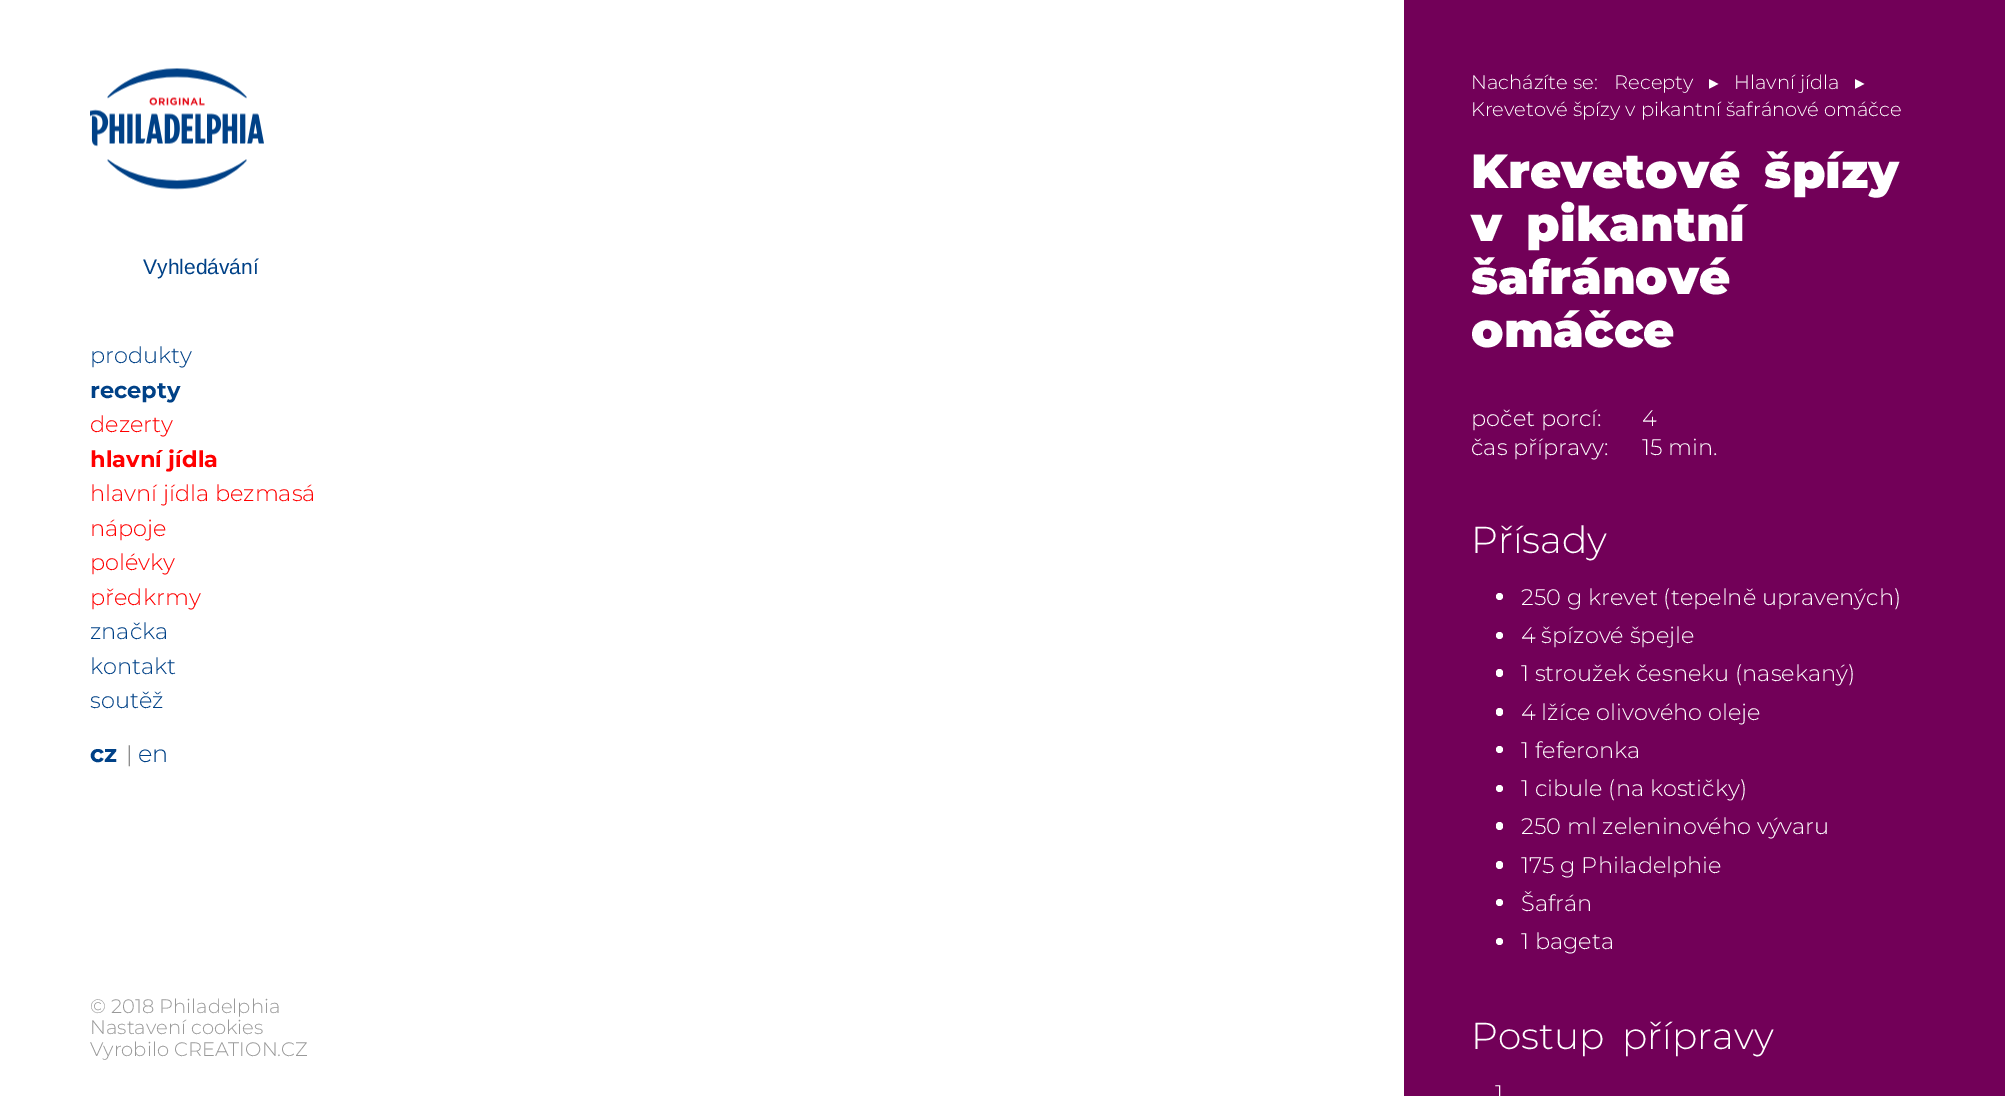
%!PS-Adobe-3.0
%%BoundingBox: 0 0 2005 1096
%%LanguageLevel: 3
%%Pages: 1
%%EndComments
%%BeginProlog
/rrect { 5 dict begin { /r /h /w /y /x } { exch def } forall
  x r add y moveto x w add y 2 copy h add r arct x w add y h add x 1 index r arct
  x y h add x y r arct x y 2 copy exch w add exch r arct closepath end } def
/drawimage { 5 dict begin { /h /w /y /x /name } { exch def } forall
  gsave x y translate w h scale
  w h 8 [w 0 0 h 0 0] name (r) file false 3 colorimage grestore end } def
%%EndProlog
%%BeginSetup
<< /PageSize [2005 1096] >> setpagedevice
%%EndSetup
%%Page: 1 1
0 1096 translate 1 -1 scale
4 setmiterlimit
1 setgray
0 0 2005 1096 rectfill
(images/1.raw) 90 68 174 122 drawimage
0.447 0 0.345 setrgbcolor
1404 0 601 1096 rectfill
1 setgray
newpath 1499.5 596.5 3.5 0 360 arc closepath fill
newpath 1499.5 635.5 3.5 0 360 arc closepath fill
1496 669 7 8 3.5 rrect fill
1496 708 7 8 3.5 rrect fill
newpath 1499.5 749.5 3.5 0 360 arc closepath fill
newpath 1499.5 788.5 3.5 0 360 arc closepath fill
1496 822 7 8 3.5 rrect fill
1496 861 7 8 3.5 rrect fill
newpath 1499.5 902.5 3.5 0 360 arc closepath fill
newpath 1499.5 941.5 3.5 0 360 arc closepath fill
/LiberationSans-Regular [21 0 0 -21 0 0] selectfont
0 0.255 0.529 setrgbcolor
143 274 moveto (Vyhledávání) show
/Montserrat-Light [22.5 0 0 -22.5 0 0] selectfont
90 363 moveto (produkty) show
/Montserrat-Bold [22.5 0 0 -22.5 0 0] selectfont
90 398 moveto (recepty) show
/Montserrat-Light [22.5 0 0 -22.5 0 0] selectfont
1 0 0 setrgbcolor
90 432 moveto (dezerty) show
/Montserrat-Bold [22.5 0 0 -22.5 0 0] selectfont
90 467 moveto (hlavní jídla) show
/Montserrat-Light [22.5 0 0 -22.5 0 0] selectfont
90 501 moveto (hlavní jídla bezmasá) show
90 536 moveto (nápoje) show
90 570 moveto (polévky) show
90 605 moveto (předkrmy) show
0 0.255 0.529 setrgbcolor
90 639 moveto (značka) show
90 674 moveto (kontakt) show
90 708 moveto (soutěž) show
/Montserrat-Bold [24 0 0 -24 0 0] selectfont
90 762 moveto (cz) show
/Montserrat-Light [22.5 0 0 -22.5 0 0] selectfont
0.4 setgray
126 762 moveto (|) show
/Montserrat-Light [24 0 0 -24 0 0] selectfont
0 0.255 0.529 setrgbcolor
138 762 moveto (en) show
/Montserrat-Light [19.5 0 0 -19.5 0 0] selectfont
1 setgray
1471 89 moveto (Nacházíte se:) show
1614 89 moveto (Recepty) show
/DejaVuSans-Regular [19.5 0 0 -19.5 0 0] selectfont
1709 89 moveto (▸) show
/Montserrat-Light [19.5 0 0 -19.5 0 0] selectfont
1734 89 moveto (Hlavní jídla) show
/DejaVuSans-Regular [19.5 0 0 -19.5 0 0] selectfont
1855 89 moveto (▸) show
/Montserrat-Light [19.5 0 0 -19.5 0 0] selectfont
1471 116 moveto (Krevetové špízy v pikantní šafránové omáčce) show
/Montserrat-Black [48 0 0 -48 0 0] selectfont
1471 188 moveto 10 0 32 (Krevetové špízy) widthshow
1471 241 moveto 10 0 32 (v pikantní) widthshow
1471 294 moveto (šafránové) show
1471 347 moveto (omáčce) show
/Montserrat-Light [22.5 0 0 -22.5 0 0] selectfont
1471 426 moveto (počet porcí:) show
1642 426 moveto (4) show
1471 455 moveto (čas přípravy:) show
1642 455 moveto (15 min.) show
/Montserrat-Light [37.5 0 0 -37.5 0 0] selectfont
1471 553 moveto (Přísady) show
/Montserrat-Light [22.5 0 0 -22.5 0 0] selectfont
1521 605 moveto (250 g krevet \(tepelně upravených\)) show
1521 643 moveto (4 špízové špejle) show
1521 681 moveto (1 stroužek česneku \(nasekaný\)) show
1521 720 moveto (4 lžíce olivového oleje) show
1521 758 moveto (1 feferonka) show
1521 796 moveto (1 cibule \(na kostičky\)) show
1521 834 moveto (250 ml zeleninového vývaru) show
1521 873 moveto (175 g Philadelphie) show
1521 911 moveto (Šafrán) show
1521 949 moveto (1 bageta) show
/Montserrat-Light [37.5 0 0 -37.5 0 0] selectfont
1471 1049 moveto 8 0 32 (Postup přípravy) widthshow
/Montserrat-Light [22.5 0 0 -22.5 0 0] selectfont
1495 1101 moveto (1) show
/Montserrat-Light [19.5 0 0 -19.5 0 0] selectfont
0.6 setgray
90 1013 moveto (© 2018 Philadelphia) show
90 1034 moveto (Nastavení cookies) show
90 1056 moveto (Vyrobilo CREATION.CZ) show
showpage
%%EOF
